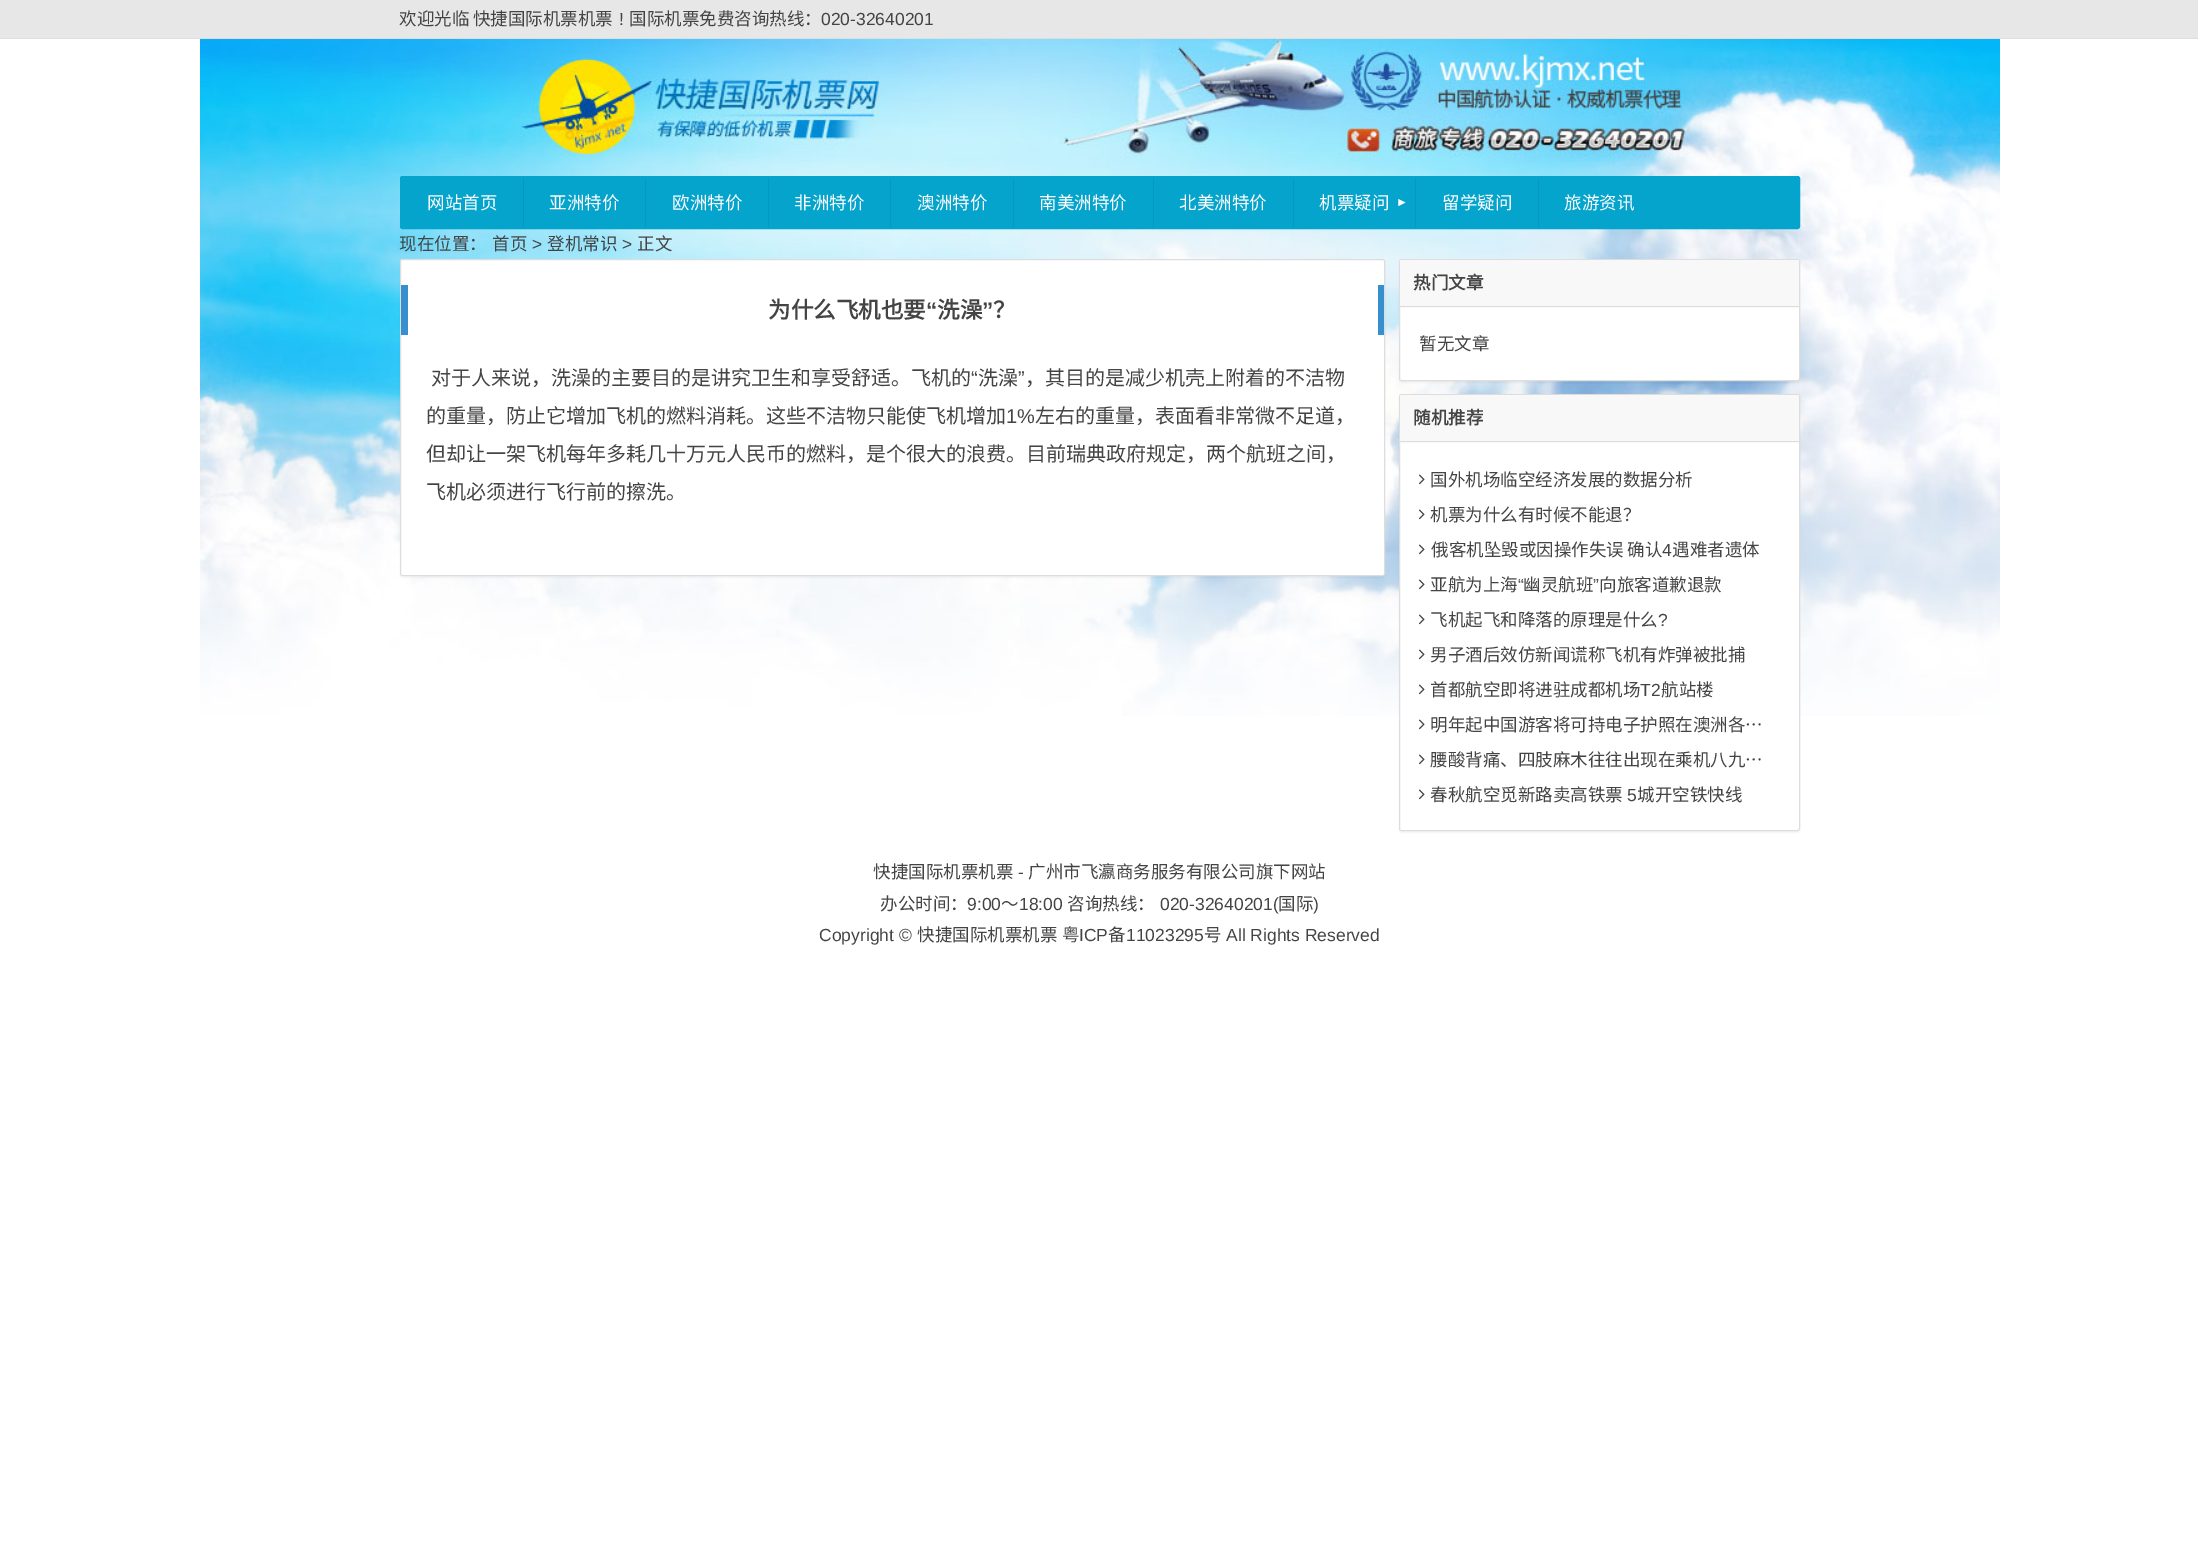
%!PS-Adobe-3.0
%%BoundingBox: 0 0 2198 1547
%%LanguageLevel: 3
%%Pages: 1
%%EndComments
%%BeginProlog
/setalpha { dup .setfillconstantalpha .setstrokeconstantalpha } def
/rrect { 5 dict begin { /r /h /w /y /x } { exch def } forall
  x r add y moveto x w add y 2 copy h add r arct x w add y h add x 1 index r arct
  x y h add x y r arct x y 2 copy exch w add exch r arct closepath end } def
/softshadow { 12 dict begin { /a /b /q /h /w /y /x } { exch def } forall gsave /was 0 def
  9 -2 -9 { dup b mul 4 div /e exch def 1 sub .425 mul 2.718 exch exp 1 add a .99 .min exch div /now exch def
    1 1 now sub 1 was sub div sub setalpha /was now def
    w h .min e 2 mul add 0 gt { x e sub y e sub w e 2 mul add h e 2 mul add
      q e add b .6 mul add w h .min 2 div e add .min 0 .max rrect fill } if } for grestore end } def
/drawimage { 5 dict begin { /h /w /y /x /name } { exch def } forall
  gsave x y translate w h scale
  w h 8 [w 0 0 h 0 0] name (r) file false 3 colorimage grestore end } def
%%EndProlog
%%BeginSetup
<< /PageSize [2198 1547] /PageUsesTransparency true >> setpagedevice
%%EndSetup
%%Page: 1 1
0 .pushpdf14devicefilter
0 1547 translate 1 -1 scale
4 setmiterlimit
1 setgray
0 0 2198 1547 rectfill
(images/1.raw) 200 39 1800 677 drawimage
0.906 setgray
0 0 2198 38 rectfill
0.871 setgray
0 38 2198 1 rectfill
0.016 0.643 0.8 setrgbcolor
400.5 176.5 1399 52 2 rrect gsave fill grestore
stroke
0.016 0.604 0.749 setrgbcolor
523 178 1 50 rectfill
645 178 1 50 rectfill
768 178 1 50 rectfill
890 178 1 50 rectfill
1013 178 1 50 rectfill
1153 178 1 50 rectfill
1293 178 1 50 rectfill
1415 178 1 50 rectfill
1538 178 1 50 rectfill
0 setgray
400 260 985 318 2.5 0.5 0.04 softshadow
1 setgray
400.5 259.5 984 316 2 rrect gsave fill grestore
0.867 setgray
stroke
0.212 0.565 0.812 setrgbcolor
1378 285 6 50 rectfill
401 285 7 50 rectfill
0 setgray
1399 260 401 123 2.5 0.5 0.04 softshadow
1 setgray
1399.5 259.5 400 121 2 rrect gsave fill grestore
0.867 setgray
stroke
0.973 setgray
1400 260 399 48 rectfill
0.867 setgray
1400 306 399 1 rectfill
0 setgray
1399 395 401 438 2.5 0.5 0.04 softshadow
1 setgray
1399.5 394.5 400 436 2 rrect gsave fill grestore
0.867 setgray
stroke
0.973 setgray
1400 395 399 48 rectfill
0.867 setgray
1400 441 399 1 rectfill
(images/2.raw) 1419 474 6 11 drawimage
(images/2.raw) 1419 509 6 11 drawimage
(images/2.raw) 1419 544 6 11 drawimage
(images/2.raw) 1419 579 6 11 drawimage
(images/2.raw) 1419 614 6 11 drawimage
(images/2.raw) 1419 649 6 11 drawimage
(images/2.raw) 1419 684 6 11 drawimage
(images/2.raw) 1419 719 6 11 drawimage
(images/2.raw) 1419 754 6 11 drawimage
(images/2.raw) 1419 789 6 11 drawimage
/NotoSansCJKSC-Regular [17.5 0 0 -17.5 0 0] selectfont
0.267 setgray
399 25 moveto (欢迎光临 快捷国际机票机票) show
/LiberationSans-Regular [17.5 0 0 -17.5 0 0] selectfont
619 25 moveto (!) show
/NotoSansCJKSC-Regular [17.5 0 0 -17.5 0 0] selectfont
629 25 moveto (国际机票免费咨询热线：) show
/LiberationSans-Regular [17.5 0 0 -17.5 0 0] selectfont
821 25 moveto (020-32640201) show
/NotoSansCJKSC-Regular [17.5 0 0 -17.5 0 0] selectfont
1 setgray
427 209 moveto (网站首页) show
549 209 moveto (亚洲特价) show
672 209 moveto (欧洲特价) show
794 209 moveto (非洲特价) show
917 209 moveto (澳洲特价) show
1039 209 moveto (南美洲特价) show
1179 209 moveto (北美洲特价) show
1319 209 moveto (机票疑问) show
/LiberationSans-Regular [12 0 0 -12 0 0] selectfont
1396 206 moveto (►) show
/NotoSansCJKSC-Regular [17.5 0 0 -17.5 0 0] selectfont
1442 209 moveto (留学疑问) show
1564 209 moveto (旅游资讯) show
0.267 setgray
399 250 moveto (现在位置：) show
492 250 moveto (首页) show
/LiberationSans-Regular [17.5 0 0 -17.5 0 0] selectfont
532 250 moveto (>) show
/NotoSansCJKSC-Regular [17.5 0 0 -17.5 0 0] selectfont
547 250 moveto (登机常识) show
/LiberationSans-Regular [17.5 0 0 -17.5 0 0] selectfont
622 250 moveto (>) show
/NotoSansCJKSC-Regular [17.5 0 0 -17.5 0 0] selectfont
637 250 moveto (正文) show
/NotoSansCJKSC-Bold [22.5 0 0 -22.5 0 0] selectfont
768 318 moveto (为什么飞机也要) show
/LiberationSans-Bold [22.5 0 0 -22.5 0 0] selectfont
926 318 moveto (“) show
/NotoSansCJKSC-Bold [22.5 0 0 -22.5 0 0] selectfont
937 318 moveto (洗澡) show
/LiberationSans-Bold [22.5 0 0 -22.5 0 0] selectfont
982 318 moveto (”) show
/NotoSansCJKSC-Bold [22.5 0 0 -22.5 0 0] selectfont
993 318 moveto (？) show
/NotoSansCJKSC-Regular [20 0 0 -20 0 0] selectfont
431 385 moveto (对于人来说，洗澡的主要目的是讲究卫生和享受舒适。飞机的) show
/LiberationSans-Regular [20 0 0 -20 0 0] selectfont
971 385 moveto (“) show
/NotoSansCJKSC-Regular [20 0 0 -20 0 0] selectfont
978 385 moveto (洗澡) show
/LiberationSans-Regular [20 0 0 -20 0 0] selectfont
1018 385 moveto (”) show
/NotoSansCJKSC-Regular [20 0 0 -20 0 0] selectfont
1025 385 moveto (，其目的是减少机壳上附着的不洁物) show
426 423 moveto (的重量，防止它增加飞机的燃料消耗。这些不洁物只能使飞机增加) show
/LiberationSans-Regular [20 0 0 -20 0 0] selectfont
1006 423 moveto (1%) show
/NotoSansCJKSC-Regular [20 0 0 -20 0 0] selectfont
1035 423 moveto (左右的重量，表面看非常微不足道，) show
426 461 moveto (但却让一架飞机每年多耗几十万元人民币的燃料，是个很大的浪费。目前瑞典政府规定，两个航班之间，) show
426 499 moveto (飞机必须进行飞行前的擦洗。) show
/NotoSansCJKSC-Bold [17.5 0 0 -17.5 0 0] selectfont
1413 289 moveto (热门文章) show
/NotoSansCJKSC-Regular [17.5 0 0 -17.5 0 0] selectfont
1419 350 moveto (暂无文章) show
/NotoSansCJKSC-Bold [17.5 0 0 -17.5 0 0] selectfont
1413 424 moveto (随机推荐) show
/NotoSansCJKSC-Regular [17.5 0 0 -17.5 0 0] selectfont
1430 486 moveto (国外机场临空经济发展的数据分析) show
1430 521 moveto (机票为什么有时候不能退？) show
1431 556 moveto (俄客机坠毁或因操作失误 确认) show
/LiberationSans-Regular [17.5 0 0 -17.5 0 0] selectfont
1662 556 moveto (4) show
/NotoSansCJKSC-Regular [17.5 0 0 -17.5 0 0] selectfont
1672 556 moveto (遇难者遗体) show
1430 591 moveto (亚航为上海) show
/LiberationSans-Regular [17.5 0 0 -17.5 0 0] selectfont
1518 591 moveto (“) show
/NotoSansCJKSC-Regular [17.5 0 0 -17.5 0 0] selectfont
1523 591 moveto (幽灵航班) show
/LiberationSans-Regular [17.5 0 0 -17.5 0 0] selectfont
1593 591 moveto (”) show
/NotoSansCJKSC-Regular [17.5 0 0 -17.5 0 0] selectfont
1599 591 moveto (向旅客道歉退款) show
1430 626 moveto (飞机起飞和降落的原理是什么) show
/LiberationSans-Regular [17.5 0 0 -17.5 0 0] selectfont
1658 626 moveto (?) show
/NotoSansCJKSC-Regular [17.5 0 0 -17.5 0 0] selectfont
1430 661 moveto (男子酒后效仿新闻谎称飞机有炸弹被批捕) show
1430 696 moveto (首都航空即将进驻成都机场) show
/LiberationSans-Regular [17.5 0 0 -17.5 0 0] selectfont
1640 696 moveto (T2) show
/NotoSansCJKSC-Regular [17.5 0 0 -17.5 0 0] selectfont
1661 696 moveto (航站楼) show
1430 731 moveto (明年起中国游客将可持电子护照在澳洲各…) show
1430 766 moveto (腰酸背痛、四肢麻木往往出现在乘机八九…) show
1430 801 moveto (春秋航空觅新路卖高铁票) show
/LiberationSans-Regular [17.5 0 0 -17.5 0 0] selectfont
1627 801 moveto (5) show
/NotoSansCJKSC-Regular [17.5 0 0 -17.5 0 0] selectfont
1637 801 moveto (城开空铁快线) show
873 878 moveto (快捷国际机票机票) show
/LiberationSans-Regular [17.5 0 0 -17.5 0 0] selectfont
1018 878 moveto (-) show
/NotoSansCJKSC-Regular [17.5 0 0 -17.5 0 0] selectfont
1028 878 moveto (广州市飞瀛商务服务有限公司旗下网站) show
880 910 moveto (办公时间：) show
/LiberationSans-Regular [17.5 0 0 -17.5 0 0] selectfont
967 910 moveto (9:00) show
/NotoSansCJKSC-Regular [17.5 0 0 -17.5 0 0] selectfont
1001 910 moveto (～) show
/LiberationSans-Regular [17.5 0 0 -17.5 0 0] selectfont
1019 910 moveto (18:00) show
/NotoSansCJKSC-Regular [17.5 0 0 -17.5 0 0] selectfont
1067 910 moveto (咨询热线：) show
/LiberationSans-Regular [17.5 0 0 -17.5 0 0] selectfont
1160 910 moveto (020-32640201\() show
/NotoSansCJKSC-Regular [17.5 0 0 -17.5 0 0] selectfont
1278 910 moveto (国际) show
/LiberationSans-Regular [17.5 0 0 -17.5 0 0] selectfont
1313 910 moveto (\)) show
819 941 moveto (Copyright ©) show
/NotoSansCJKSC-Regular [17.5 0 0 -17.5 0 0] selectfont
917 941 moveto (快捷国际机票机票) show
1062 941 moveto (粤) show
/LiberationSans-Regular [17.5 0 0 -17.5 0 0] selectfont
1079 941 moveto (ICP) show
/NotoSansCJKSC-Regular [17.5 0 0 -17.5 0 0] selectfont
1108 941 moveto (备) show
/LiberationSans-Regular [17.5 0 0 -17.5 0 0] selectfont
1126 941 moveto (11023295) show
/NotoSansCJKSC-Regular [17.5 0 0 -17.5 0 0] selectfont
1204 941 moveto (号) show
/LiberationSans-Regular [17.5 0 0 -17.5 0 0] selectfont
1226 941 moveto (All Rights Reserved) show
.poppdf14devicefilter showpage
%%EOF
